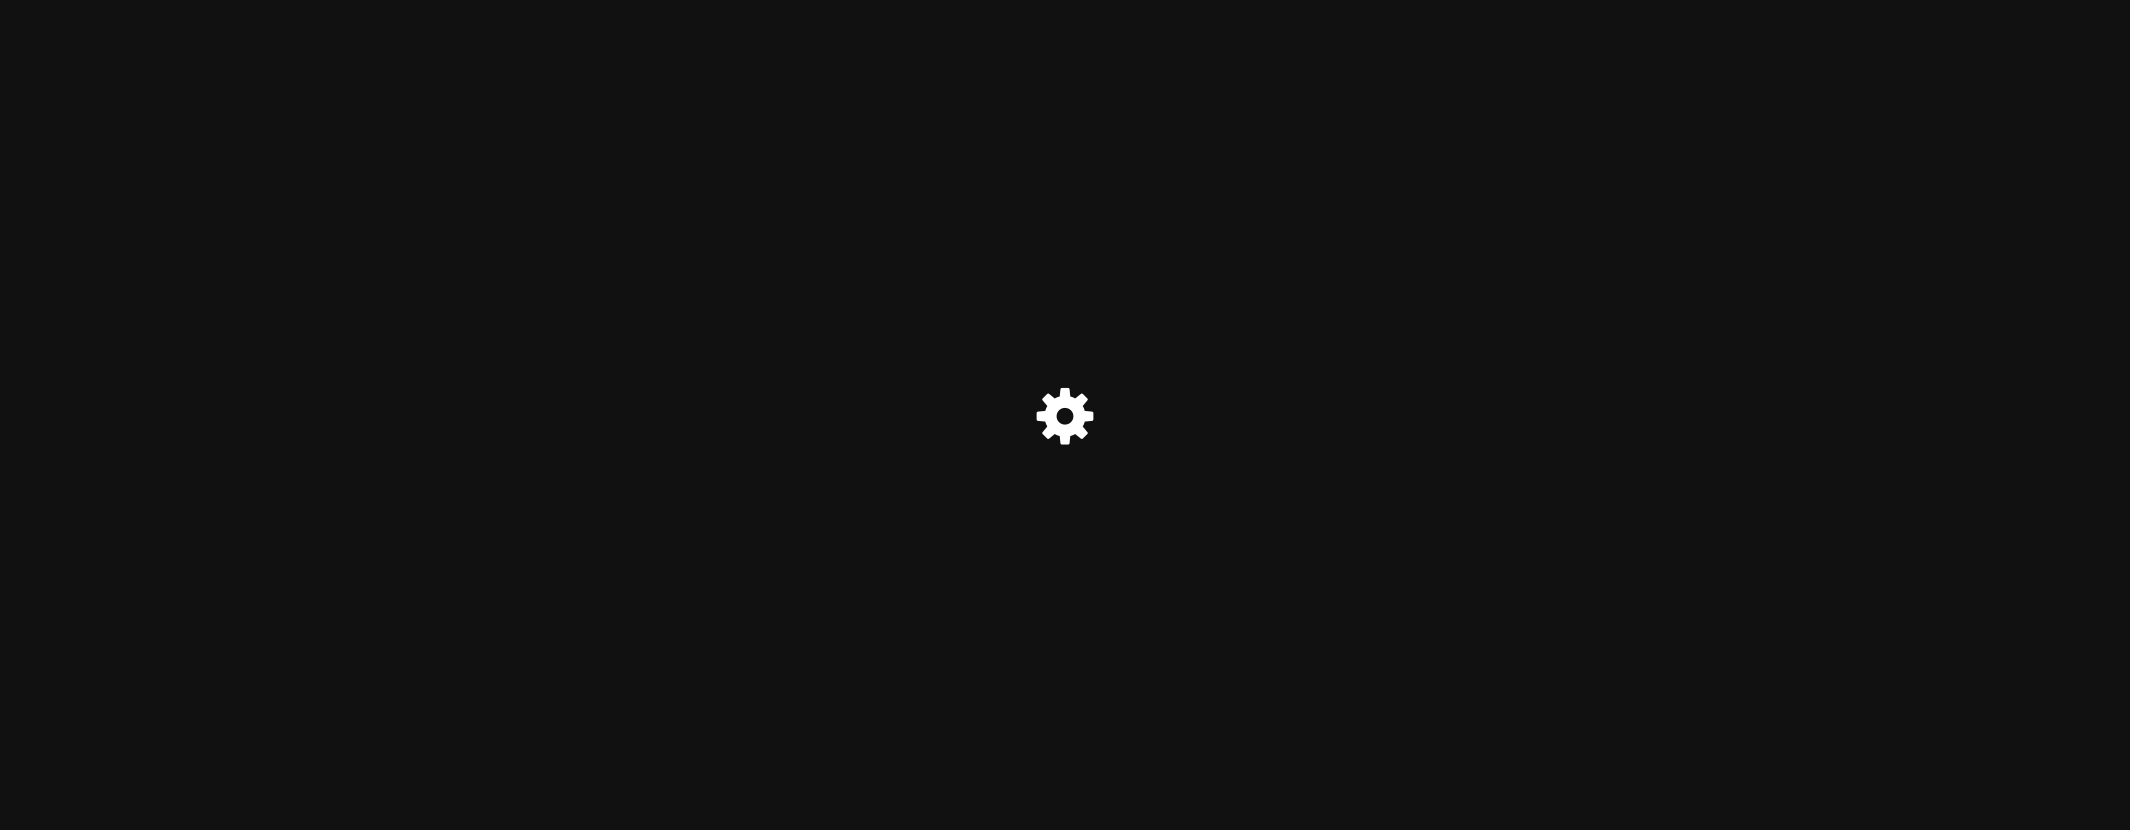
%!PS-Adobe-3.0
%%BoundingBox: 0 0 2130 830
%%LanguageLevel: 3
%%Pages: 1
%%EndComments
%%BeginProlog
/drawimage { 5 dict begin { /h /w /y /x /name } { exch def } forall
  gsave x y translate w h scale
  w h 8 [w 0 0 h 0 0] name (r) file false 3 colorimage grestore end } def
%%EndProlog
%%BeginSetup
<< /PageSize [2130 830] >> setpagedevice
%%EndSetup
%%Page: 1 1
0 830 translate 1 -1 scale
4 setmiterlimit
0.067 setgray
0 0 2130 830 rectfill
(images/1.raw) 1036 387 58 58 drawimage
showpage
%%EOF
